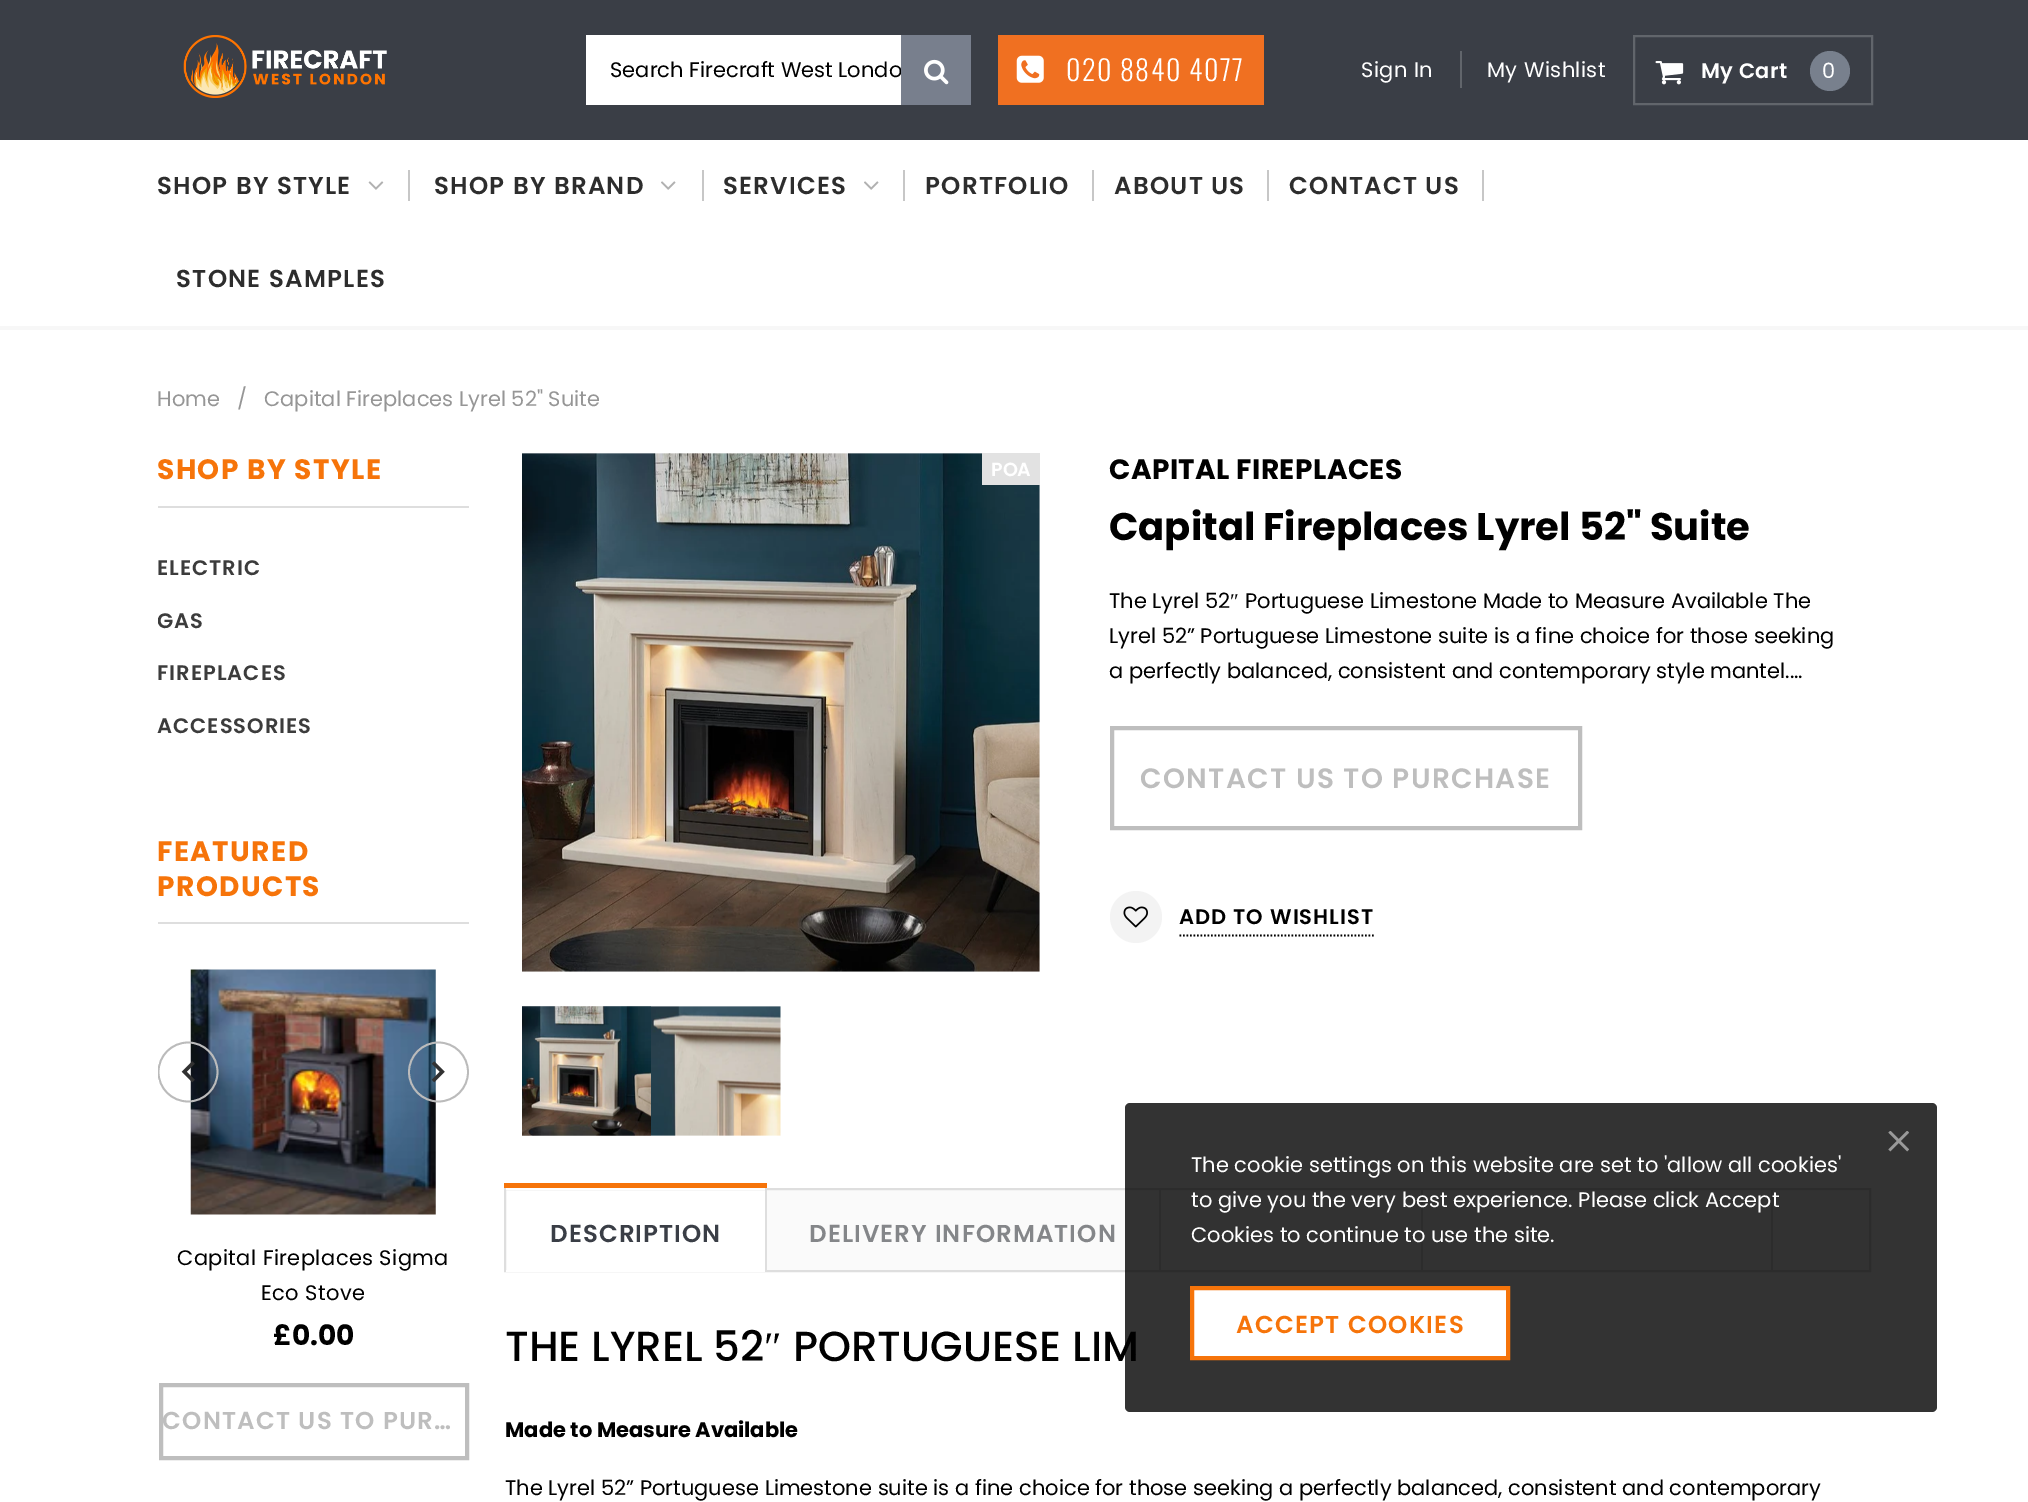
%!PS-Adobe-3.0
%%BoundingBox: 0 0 2028 1502
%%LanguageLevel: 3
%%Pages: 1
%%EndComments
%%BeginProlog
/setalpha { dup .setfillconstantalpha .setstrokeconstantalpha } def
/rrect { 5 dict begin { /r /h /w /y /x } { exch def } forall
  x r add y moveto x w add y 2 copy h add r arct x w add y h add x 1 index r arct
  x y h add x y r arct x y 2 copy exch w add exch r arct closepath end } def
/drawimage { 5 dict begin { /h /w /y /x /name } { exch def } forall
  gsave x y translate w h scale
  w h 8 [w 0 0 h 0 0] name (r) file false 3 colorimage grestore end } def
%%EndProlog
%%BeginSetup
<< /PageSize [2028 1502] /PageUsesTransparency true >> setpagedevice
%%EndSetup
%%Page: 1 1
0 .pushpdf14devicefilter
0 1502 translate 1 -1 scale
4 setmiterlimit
1 setgray
0 0 2028 1502 rectfill
0.227 0.243 0.275 setrgbcolor
0 0 2028 140 rectfill
(images/1.raw) 183 35 204 63 drawimage
1 setgray
586 35 315 70 rectfill
0.941 0.439 0.129 setrgbcolor
998 35 266 70 rectfill
(images/3.raw) 1016 55 28 28 drawimage
0.38 0.396 0.42 setrgbcolor
1460 51 2 37 rectfill
2 setlinewidth
1634 36 238 68 rectstroke
(images/4.raw) 1655 61 29 24 drawimage
0.471 0.502 0.553 setrgbcolor
newpath 1830 71 20 0 360 arc closepath fill
0.969 setgray
0 326 2028 4 rectfill
(images/5.raw) 368 181 16 9 drawimage
0.78 setgray
408 170 2 31 rectfill
(images/6.raw) 661 181 15 9 drawimage
702 170 2 31 rectfill
(images/6.raw) 864 181 15 9 drawimage
903 170 2 31 rectfill
1092 170 2 31 rectfill
1267 170 2 31 rectfill
1482 170 2 31 rectfill
0.871 setgray
158 506 311 2 rectfill
158 922 311 2 rectfill
(images/7.raw) 190 969 246 246 drawimage
gsave
158 1041 61 62 30.5 rrect clip newpath
0.733 setgray
1.8 setlinewidth
newpath 188 1072 29.5 0 360 arc closepath stroke
grestore
0.196 setgray
3.5 setlinewidth
newpath 183 1073 moveto 193.5 1062.5 lineto 193.5 1081 moveto 183 1070.5 lineto stroke
gsave
408 1041 61 62 30.5 rrect clip newpath
0.733 setgray
1.8 setlinewidth
newpath 438.5 1072 29.5 0 360 arc closepath stroke
grestore
newpath 433 1062.5 moveto 443.5 1073 lineto 443.5 1070.5 moveto 433 1081 lineto stroke
0.745 setgray
4 setlinewidth
161 1385 306 73 rectstroke
(images/8.raw) 522 453 518 519 drawimage
0.886 setgray
982 453 58 32 rectfill
(images/9.raw) 522 1006 129 130 drawimage
(images/10.raw) 651 1006 130 130 drawimage
0.745 setgray
1112 728 468 100 rectstroke
0.953 setgray
newpath 1136 917 26 0 360 arc closepath fill
(images/11.raw) 1123 906 25 22 drawimage
0 setgray
1.8 setlinewidth
[1.75 1.75] 0 setdash
newpath 1179.5 935.5 moveto 1374 935.5 lineto stroke
0.98 setgray
767 1190 1102 80 rectfill
0.871 setgray
2 setlinewidth
[] 0 setdash
505 1189 1365 82 rectstroke
765 1190 2 82 rectfill
1 setgray
506 1270 259 2 rectfill
0.965 0.455 0.039 setrgbcolor
504 1183 263 5 rectfill
1 setgray
506 1188 259 2 rectfill
0.871 setgray
1159 1190 2 81 rectfill
1421 1190 2 81 rectfill
1771 1190 2 81 rectfill
/Poppins-Regular [21 0 0 -21 0 0] selectfont
0 setgray
610 77 moveto (Search Firecraft West Londo) show
0.471 0.498 0.553 setrgbcolor
901 35 70 70 rectfill
(images/2.raw) 924 59 25 26 drawimage
/Oswald-Light [28 0 0 -28 0 0] selectfont
1 setgray
1066 81 moveto 1.4 0 (020 8840 4077) ashow
/Poppins-Regular [21 0 0 -21 0 0] selectfont
1361 77 moveto 0.4 0 (Sign In) ashow
1487 77 moveto 0.4 0 (My Wishlist) ashow
/Poppins-SemiBold [21 0 0 -21 0 0] selectfont
1701 78 moveto 0.4 0 (My Cart) ashow
/Poppins-Regular [21 0 0 -21 0 0] selectfont
1822 78 moveto (0) show
/Poppins-SemiBold [24.5 0 0 -24.5 0 0] selectfont
0.176 setgray
157 194 moveto 1.25 0 (SHOP BY STYLE) ashow
434 194 moveto 1.25 0 (SHOP BY BRAND) ashow
723 194 moveto 1.25 0 (SERVICES) ashow
925 194 moveto 1.25 0 (PORTFOLIO) ashow
1114 194 moveto 1.25 0 (ABOUT US) ashow
1289 194 moveto 1.25 0 (CONTACT US) ashow
176 287 moveto 1.25 0 (STONE SAMPLES) ashow
/Poppins-Regular [21 0 0 -21 0 0] selectfont
0.588 setgray
157 406 moveto (Home) show
237 406 moveto (/) show
264 406 moveto (Capital Fireplaces Lyrel 52" Suite) show
/Poppins-Bold [28 0 0 -28 0 0] selectfont
0.965 0.455 0.039 setrgbcolor
157 479 moveto 1.4 0 (SHOP BY STYLE) ashow
/Poppins-SemiBold [21 0 0 -21 0 0] selectfont
0.235 setgray
157 575 moveto 1.05 0 (ELECTRIC) ashow
gsave
158 543 311 210 rectclip
157 628 moveto 1.05 0 (GAS) ashow
grestore
157 680 moveto 1.05 0 (FIREPLACES) ashow
157 733 moveto 1.05 0 (ACCESSORIES) ashow
/Poppins-Bold [28 0 0 -28 0 0] selectfont
0.965 0.455 0.039 setrgbcolor
157 861 moveto 1.4 0 (FEATURED) ashow
157 896 moveto 1.4 0 (PRODUCTS) ashow
/Poppins-Regular [21 0 0 -21 0 0] selectfont
0 setgray
177 1265 moveto 0.4 0 (Capital Fireplaces Sigma) ashow
261 1300 moveto 0.4 0 (Eco Stove) ashow
/Poppins-Bold [28 0 0 -28 0 0] selectfont
273 1345 moveto (£0.00) show
gsave
163 1386 303 70 rectclip
/Poppins-SemiBold [24.5 0 0 -24.5 0 0] selectfont
0.745 setgray
162 1429 moveto 1.25 0 (CONTACT US TO PUR…) ashow
grestore
/Poppins-SemiBold [19 0 0 -19 0 0] selectfont
1 setgray
991 476 moveto (POA) show
/Poppins-Bold [28 0 0 -28 0 0] selectfont
0 setgray
1109 479 moveto 0.4 0 (CAPITAL FIREPLACES) ashow
/Poppins-Bold [38.5 0 0 -38.5 0 0] selectfont
1109 540 moveto (Capital Fireplaces Lyrel 52" Suite) show
/Poppins-Regular [21 0 0 -21 0 0] selectfont
1109 608 moveto (The Lyrel 52) show
/LiberationSerif-Regular [21 0 0 -21 0 0] selectfont
1230 608 moveto (″) show
/Poppins-Regular [21 0 0 -21 0 0] selectfont
1245 608 moveto (Portuguese Limestone Made to Measure Available The) show
1109 643 moveto (Lyrel 52” Portuguese Limestone suite is a fine choice for those seeking) show
1109 678 moveto (a perfectly balanced, consistent and contemporary style mantel....) show
/Poppins-SemiBold [28 0 0 -28 0 0] selectfont
0.745 setgray
1140 788 moveto 1.4 0 (CONTACT US TO PURCHASE) ashow
/Poppins-SemiBold [21 0 0 -21 0 0] selectfont
0 setgray
1179 924 moveto 1.05 0 (ADD TO WISHLIST) ashow
/Poppins-SemiBold [24.5 0 0 -24.5 0 0] selectfont
0.227 0.243 0.275 setrgbcolor
550 1242 moveto 1.05 0 (DESCRIPTION) ashow
0.518 0.525 0.537 setrgbcolor
809 1242 moveto 1.05 0 (DELIVERY INFORMATION) ashow
/Poppins-Medium [42 0 0 -42 0 0] selectfont
0 setgray
505 1361 moveto (THE LYREL 52) show
/LiberationSerif-Regular [42 0 0 -42 0 0] selectfont
764 1361 moveto (″) show
/Poppins-Medium [42 0 0 -42 0 0] selectfont
793 1361 moveto (PORTUGUESE LIM) show
/Poppins-Bold [21 0 0 -21 0 0] selectfont
505 1437 moveto (Made to Measure Available) show
/Poppins-Regular [21 0 0 -21 0 0] selectfont
505 1495 moveto (The Lyrel 52” Portuguese Limestone suite is a fine choice for those seeking a perfectly balanced, consistent and contemporary) show
0.8 setalpha
1125 1103 812 309 5 rrect fill
1 setalpha
(images/12.raw) 1888 1131 21 21 drawimage
1 setgray
1191 1172 moveto (The cookie settings on this website are set to 'allow all cookies') show
1191 1207 moveto (to give you the very best experience. Please click Accept) show
1191 1242 moveto (Cookies to continue to use the site.) show
newpath 1192 1288 moveto 1508 1288 lineto 1508 1358 lineto 1192 1358 lineto closepath gsave fill grestore
0.965 0.455 0.039 setrgbcolor
4 setlinewidth
stroke
/Poppins-SemiBold [24.5 0 0 -24.5 0 0] selectfont
1236 1333 moveto 1.25 0 (ACCEPT COOKIES) ashow
.poppdf14devicefilter showpage
%%EOF
